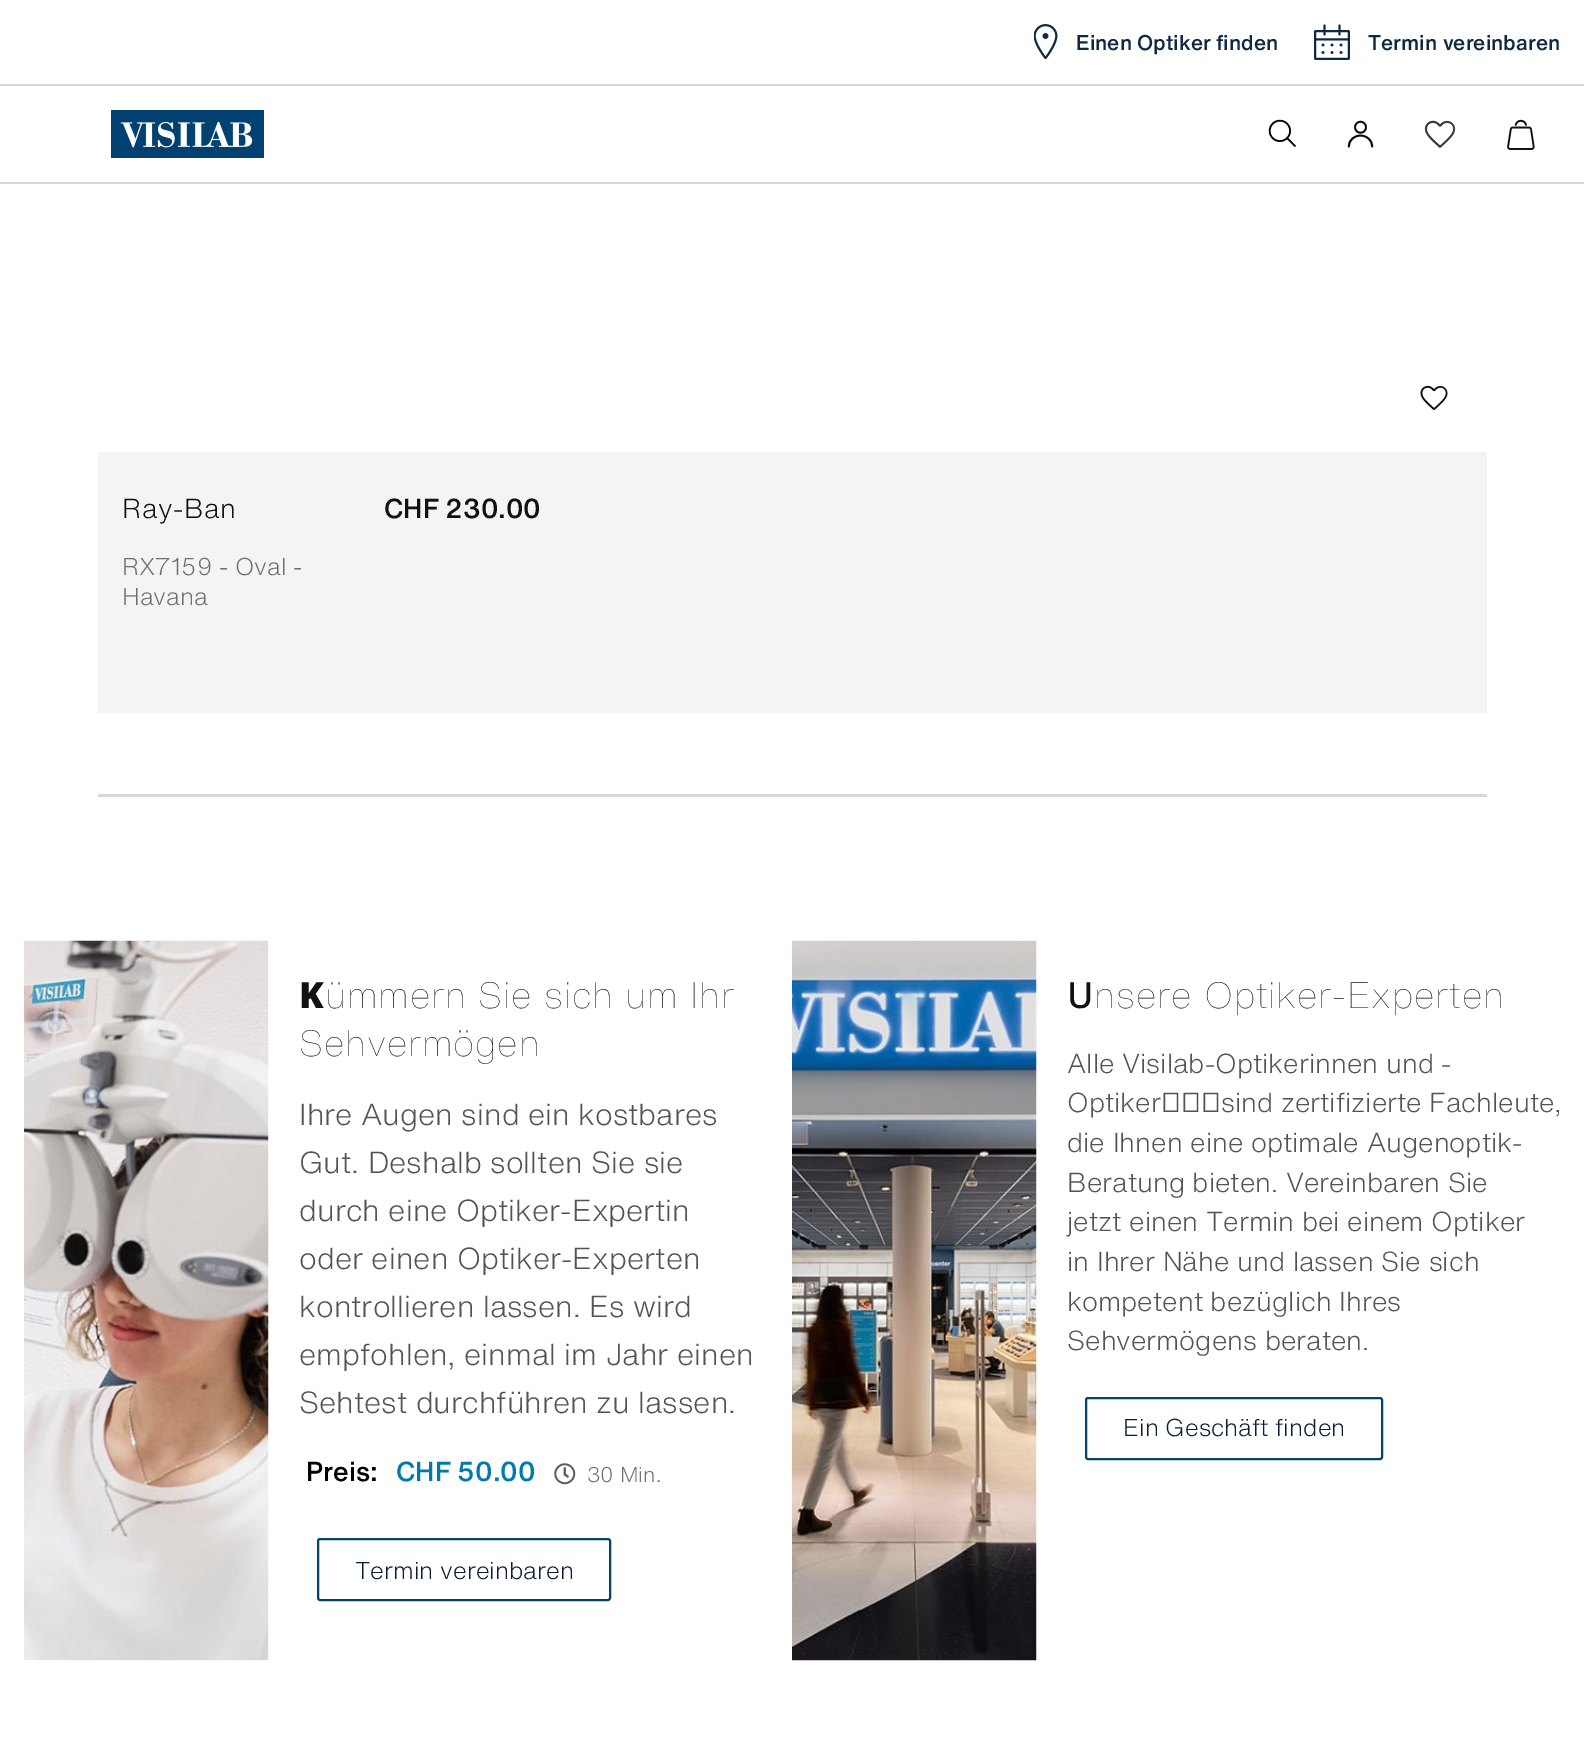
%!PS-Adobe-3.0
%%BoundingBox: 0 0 1584 1749
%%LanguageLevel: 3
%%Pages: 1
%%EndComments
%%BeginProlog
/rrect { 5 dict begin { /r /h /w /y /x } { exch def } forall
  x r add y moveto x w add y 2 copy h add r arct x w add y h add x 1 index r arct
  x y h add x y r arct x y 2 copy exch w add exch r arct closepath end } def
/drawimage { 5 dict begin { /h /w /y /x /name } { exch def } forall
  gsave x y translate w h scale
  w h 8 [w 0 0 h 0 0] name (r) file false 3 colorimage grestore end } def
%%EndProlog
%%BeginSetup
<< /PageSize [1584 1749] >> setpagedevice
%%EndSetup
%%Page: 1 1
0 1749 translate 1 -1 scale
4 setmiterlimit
1 setgray
0 0 1584 1749 rectfill
0.847 setgray
0 182 1584 2 rectfill
(images/1.raw) 1034 24 24 36 drawimage
(images/2.raw) 1314 24 36 36 drawimage
0 84 1584 2 rectfill
0 0.255 0.443 setrgbcolor
111 110 153 48 rectfill
(images/3.raw) 120 121 133 27 drawimage
(images/4.raw) 1268 119 28 28 drawimage
(images/5.raw) 1347 120 27 28 drawimage
(images/6.raw) 1424 120 32 28 drawimage
(images/7.raw) 1507 119 28 31 drawimage
(images/8.raw) 1420 385 28 26 drawimage
0.957 setgray
98 452 1389 261 rectfill
0.847 setgray
98 794 1389 3 rectfill
(images/9.raw) 24 940 245 721 drawimage
(images/10.raw) 554 1463 22 22 drawimage
0 0.271 0.412 setrgbcolor
2 setlinewidth
318 1539 292 61 2 rrect stroke
(images/11.raw) 792 940 245 721 drawimage
1086 1398 296 61 2 rrect stroke
/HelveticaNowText-Medium [21 0 0 -21 0 0] selectfont
0.059 0.161 0.267 setrgbcolor
1076 50 moveto (Einen Optiker finden) show
1368 50 moveto (Termin vereinbaren) show
/HelveticaNowText-Light [27 0 0 -27 0 0] selectfont
0.067 setgray
122 518 moveto 0.5 0 (Ray-Ban) ashow
/HelveticaNowText-Light [24 0 0 -24 0 0] selectfont
0.439 0.435 0.435 setrgbcolor
122 575 moveto (RX7159 - Oval -) show
122 605 moveto (Havana) show
/HelveticaNowText-Medium [27 0 0 -27 0 0] selectfont
0.067 setgray
384 518 moveto (CHF 230.00) show
/NotoSans-Black [36 0 0 -36 0 0] selectfont
299 1008 moveto 0.75 0 (K) ashow
/HelveticaNowText-Thin [36 0 0 -36 0 0] selectfont
325 1008 moveto 0.75 0 (ümmern Sie sich um Ihr) ashow
299 1056 moveto 0.75 0 (Sehvermögen) ashow
/HelveticaNowText-Light [30 0 0 -30 0 0] selectfont
0.329 0.325 0.325 setrgbcolor
299 1125 moveto (Ihre Augen sind ein kostbares) show
299 1173 moveto (Gut. Deshalb sollten Sie sie) show
299 1221 moveto (durch eine Optiker-Expertin) show
299 1269 moveto (oder einen Optiker-Experten) show
299 1317 moveto (kontrollieren lassen. Es wird) show
299 1365 moveto (empfohlen, einmal im Jahr einen) show
299 1413 moveto (Sehtest durchführen zu lassen.) show
/HelveticaNowText-Medium [27 0 0 -27 0 0] selectfont
0 setgray
306 1481 moveto (Preis:) show
0 0.475 0.671 setrgbcolor
396 1481 moveto (CHF 50.00) show
/HelveticaNowText-Light [21 0 0 -21 0 0] selectfont
0.439 0.435 0.435 setrgbcolor
587 1482 moveto (30 Min.) show
/HelveticaNowText-Light [24 0 0 -24 0 0] selectfont
0.051 0.118 0.196 setrgbcolor
355 1579 moveto (Termin vereinbaren) show
/NotoSans-Medium [36 0 0 -36 0 0] selectfont
0.067 setgray
1067 1008 moveto 0.75 0 (U) ashow
/HelveticaNowText-Thin [36 0 0 -36 0 0] selectfont
1094 1008 moveto 0.75 0 (nsere Optiker-Experten) ashow
/HelveticaNowText-Light [27 0 0 -27 0 0] selectfont
0.329 0.325 0.325 setrgbcolor
1067 1073 moveto (Alle Visilab-Optikerinnen und -) show
1067 1112 moveto (Optiker sind zertifizierte Fachleute,) show
1067 1152 moveto (die Ihnen eine optimale Augenoptik-) show
1067 1192 moveto (Beratung bieten. Vereinbaren Sie) show
1067 1231 moveto (jetzt einen Termin bei einem Optiker) show
1067 1271 moveto (in Ihrer Nähe und lassen Sie sich) show
1067 1311 moveto (kompetent bezüglich Ihres) show
1067 1350 moveto (Sehvermögens beraten.) show
/HelveticaNowText-Light [24 0 0 -24 0 0] selectfont
0.051 0.118 0.196 setrgbcolor
1123 1436 moveto (Ein Geschäft finden) show
showpage
%%EOF
